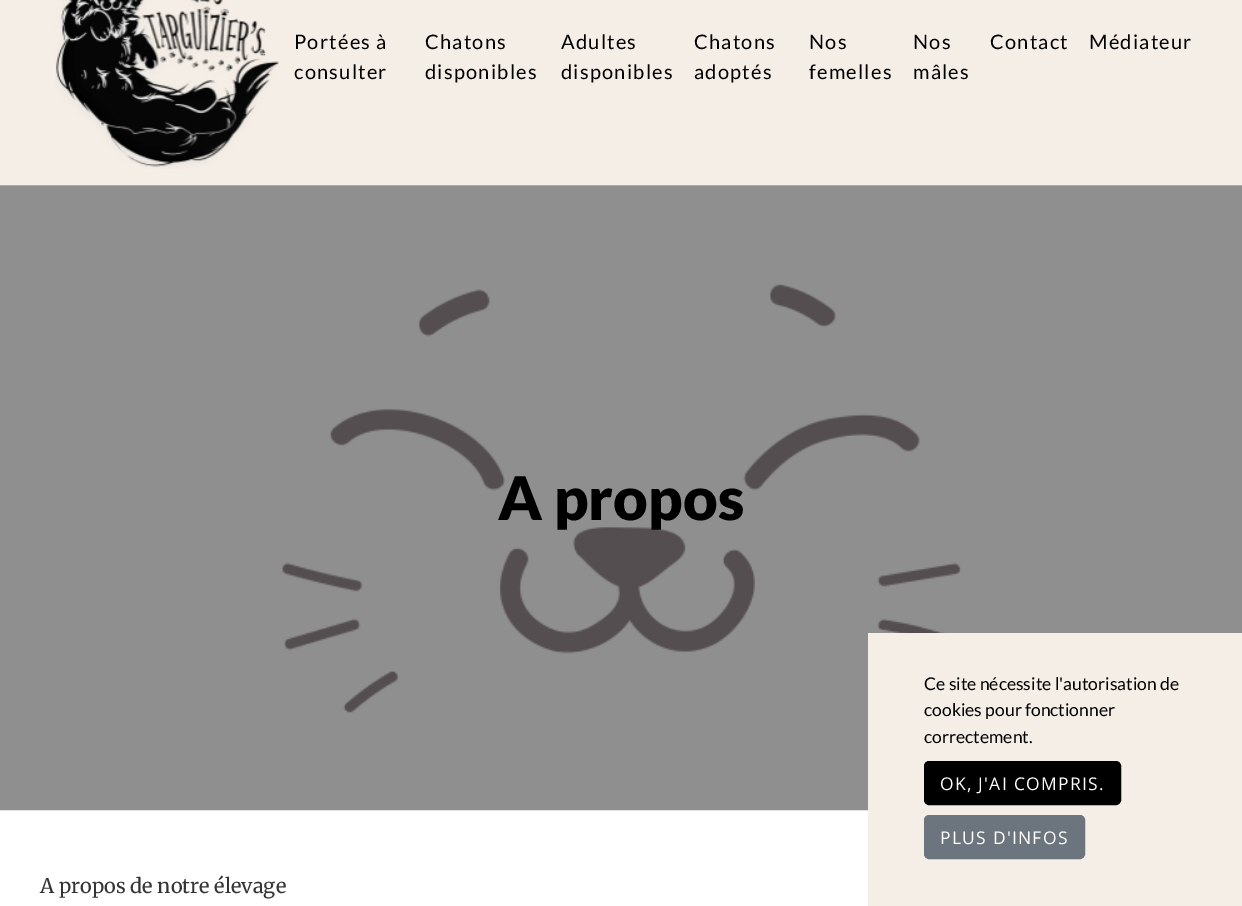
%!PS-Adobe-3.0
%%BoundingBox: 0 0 1242 906
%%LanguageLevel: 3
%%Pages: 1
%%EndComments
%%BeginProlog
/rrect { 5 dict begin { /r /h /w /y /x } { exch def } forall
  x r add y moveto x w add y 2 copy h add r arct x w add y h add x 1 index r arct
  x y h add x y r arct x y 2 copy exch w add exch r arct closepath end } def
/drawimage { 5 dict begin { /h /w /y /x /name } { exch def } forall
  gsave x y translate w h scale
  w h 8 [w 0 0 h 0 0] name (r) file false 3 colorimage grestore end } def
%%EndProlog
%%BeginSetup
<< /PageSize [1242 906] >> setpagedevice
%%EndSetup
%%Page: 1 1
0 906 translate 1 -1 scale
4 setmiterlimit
1 setgray
0 0 1242 906 rectfill
0.961 0.933 0.902 setrgbcolor
0 0 1242 185 rectfill
(images/1.raw) 55 0 224 169 drawimage
(images/2.raw) 0 185 1242 626 drawimage
868 633 374 273 rectfill
0 setgray
924.5 761.5 196 43 4.5 rrect gsave fill grestore
stroke
0.424 0.459 0.49 setrgbcolor
924.5 815.5 160 43 4.5 rrect gsave fill grestore
stroke
/Lato-Regular [20 0 0 -20 0 0] selectfont
0 setgray
294 49 moveto 1.25 0 (Portées à) ashow
294 79 moveto 1.25 0 (consulter) ashow
425 49 moveto 1.25 0 (Chatons) ashow
425 79 moveto 1.25 0 (disponibles) ashow
561 49 moveto 1.25 0 (Adultes) ashow
561 79 moveto 1.25 0 (disponibles) ashow
694 49 moveto 1.25 0 (Chatons) ashow
694 79 moveto 1.25 0 (adoptés) ashow
809 49 moveto 1.25 0 (Nos) ashow
809 79 moveto 1.25 0 (femelles) ashow
913 49 moveto 1.25 0 (Nos) ashow
913 79 moveto 1.25 0 (mâles) ashow
990 49 moveto 1.25 0 (Contact) ashow
1089 49 moveto 1.25 0 (Médiateur) ashow
/Lato-Black [60 0 0 -60 0 0] selectfont
498 520 moveto (A propos) show
/Merriweather-Light [20 0 0 -20 0 0] selectfont
0.204 setgray
40 893 moveto (A propos de notre élevage) show
/Lato-Regular [17.5 0 0 -17.5 0 0] selectfont
0 setgray
924 690 moveto (Ce site nécessite l'autorisation de) show
924 716 moveto (cookies pour fonctionner) show
924 743 moveto (correctement.) show
/OpenSans-Regular [17.5 0 0 -17.5 0 0] selectfont
1 setgray
940 790 moveto 1.25 0 (OK, J'AI COMPRIS.) ashow
940 844 moveto 1.25 0 (PLUS D'INFOS) ashow
showpage
%%EOF
